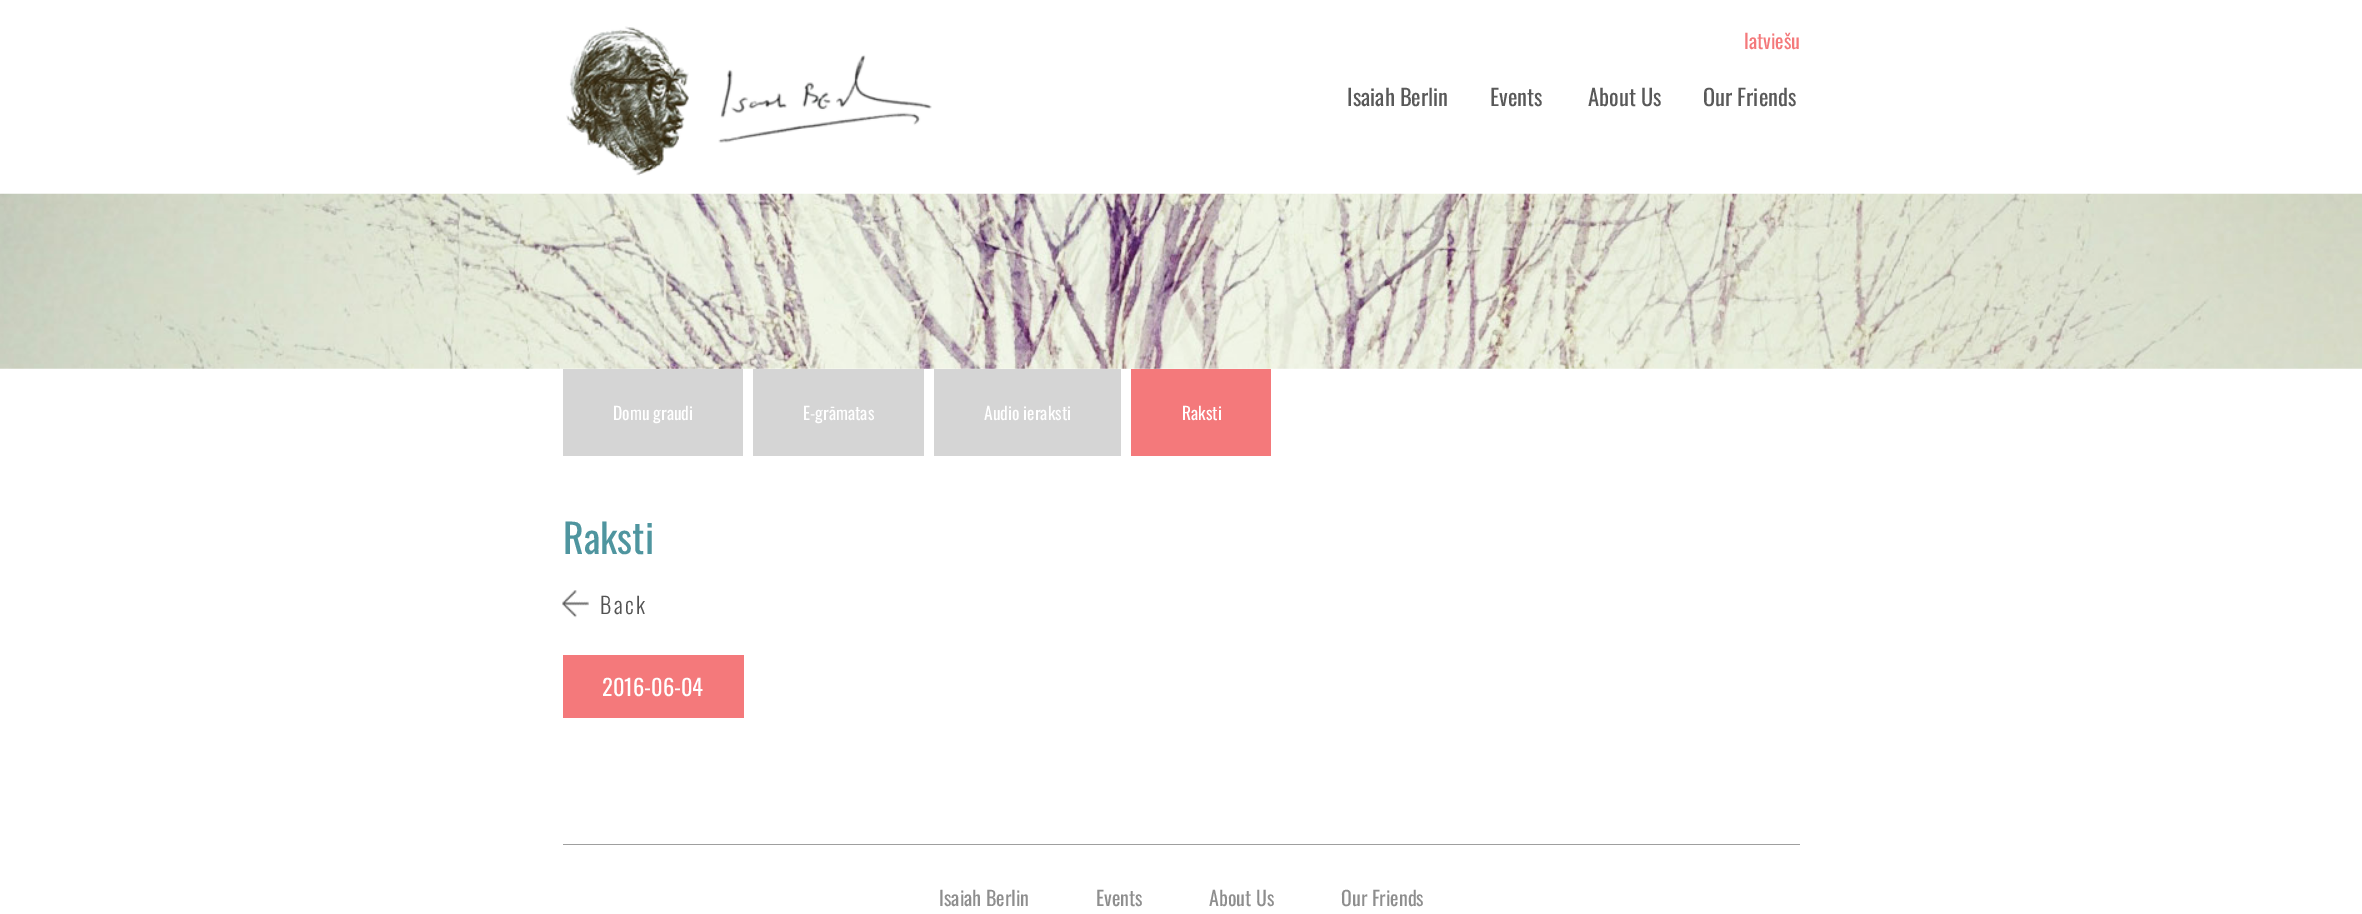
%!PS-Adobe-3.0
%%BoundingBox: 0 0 2362 914
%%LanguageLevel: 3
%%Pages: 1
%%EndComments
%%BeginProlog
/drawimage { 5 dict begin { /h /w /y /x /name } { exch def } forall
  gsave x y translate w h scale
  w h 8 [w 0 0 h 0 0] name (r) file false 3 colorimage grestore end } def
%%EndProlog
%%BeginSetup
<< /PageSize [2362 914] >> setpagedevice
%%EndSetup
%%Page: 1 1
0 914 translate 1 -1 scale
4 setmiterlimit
1 setgray
0 0 2362 914 rectfill
(images/1.raw) 566 26 366 150 drawimage
(images/2.raw) 0 193 2362 176 drawimage
0.835 setgray
563 369 180 87 rectfill
753 369 171 87 rectfill
934 369 187 87 rectfill
0.957 0.475 0.482 setrgbcolor
1131 369 140 87 rectfill
(images/3.raw) 562 590 27 28 drawimage
563 655 181 63 rectfill
0.624 setgray
563 844 1237 1 rectfill
/Oswald-Regular [20 0 0 -20 0 0] selectfont
0.957 0.475 0.482 setrgbcolor
1744 49 moveto (latviešu) show
/Oswald-Regular [22.5 0 0 -22.5 0 0] selectfont
0.349 setgray
1347 106 moveto (Isaiah Berlin) show
1490 106 moveto (Events) show
1588 106 moveto (About Us) show
1703 106 moveto (Our Friends) show
/Oswald-Regular [17.5 0 0 -17.5 0 0] selectfont
1 setgray
613 420 moveto (Domu graudi) show
803 420 moveto (E-grāmatas) show
984 420 moveto (Audio ieraksti) show
1182 420 moveto (Raksti) show
/Oswald-Regular [40 0 0 -40 0 0] selectfont
0.31 0.584 0.624 setrgbcolor
563 554 moveto (Raksti) show
/Oswald-Light [22.5 0 0 -22.5 0 0] selectfont
0.325 setgray
600 614 moveto 2.5 0 (Back) ashow
/Oswald-Regular [22.5 0 0 -22.5 0 0] selectfont
1 setgray
602 696 moveto (2016-06-04) show
/Oswald-Regular [20 0 0 -20 0 0] selectfont
0.557 setgray
939 906 moveto (Isaiah Berlin) show
1096 906 moveto (Events) show
1209 906 moveto (About Us) show
1341 906 moveto (Our Friends) show
showpage
%%EOF
